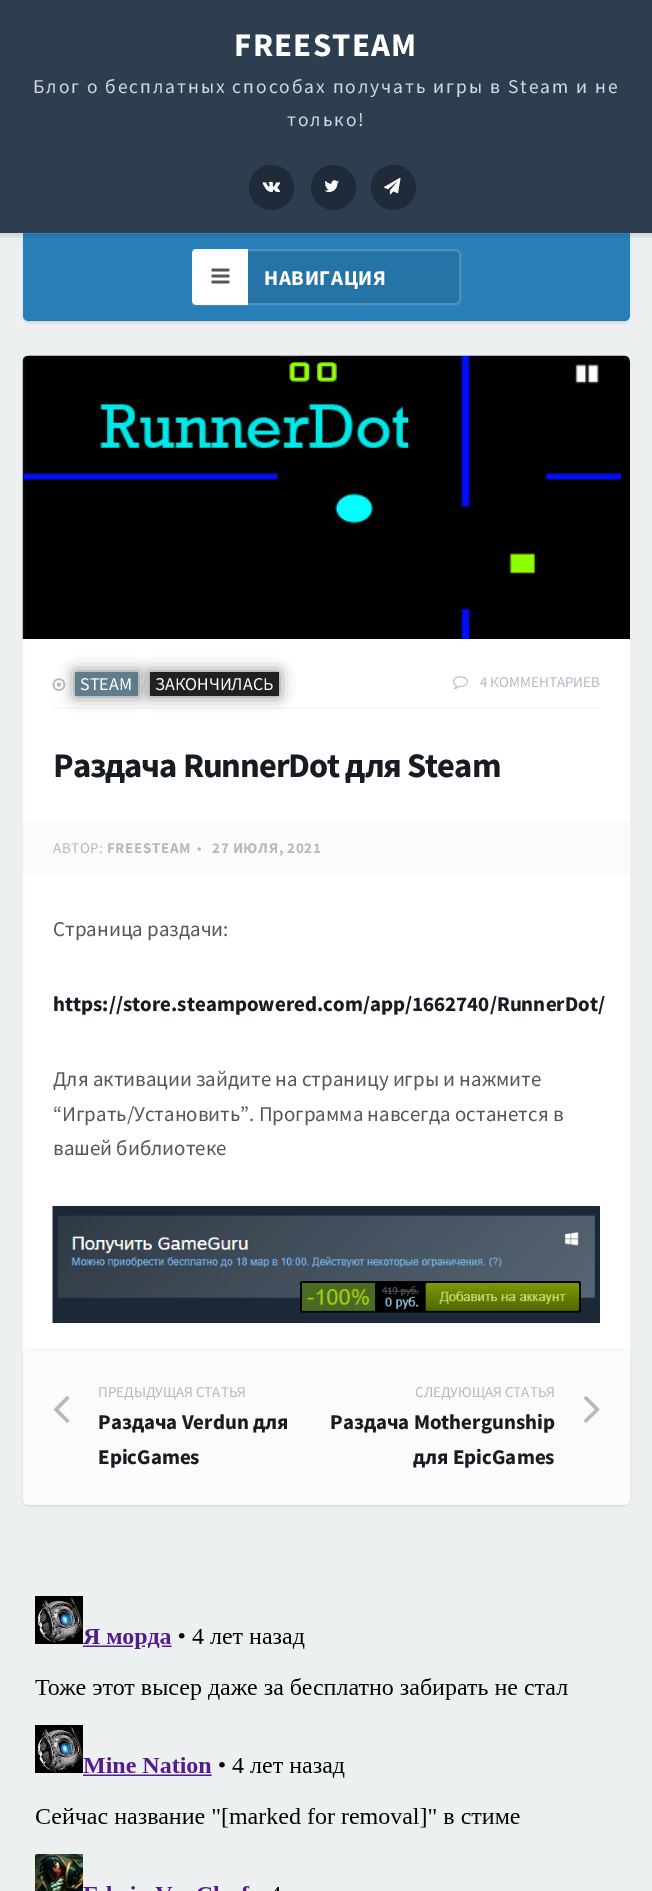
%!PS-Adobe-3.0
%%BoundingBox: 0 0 652 1891
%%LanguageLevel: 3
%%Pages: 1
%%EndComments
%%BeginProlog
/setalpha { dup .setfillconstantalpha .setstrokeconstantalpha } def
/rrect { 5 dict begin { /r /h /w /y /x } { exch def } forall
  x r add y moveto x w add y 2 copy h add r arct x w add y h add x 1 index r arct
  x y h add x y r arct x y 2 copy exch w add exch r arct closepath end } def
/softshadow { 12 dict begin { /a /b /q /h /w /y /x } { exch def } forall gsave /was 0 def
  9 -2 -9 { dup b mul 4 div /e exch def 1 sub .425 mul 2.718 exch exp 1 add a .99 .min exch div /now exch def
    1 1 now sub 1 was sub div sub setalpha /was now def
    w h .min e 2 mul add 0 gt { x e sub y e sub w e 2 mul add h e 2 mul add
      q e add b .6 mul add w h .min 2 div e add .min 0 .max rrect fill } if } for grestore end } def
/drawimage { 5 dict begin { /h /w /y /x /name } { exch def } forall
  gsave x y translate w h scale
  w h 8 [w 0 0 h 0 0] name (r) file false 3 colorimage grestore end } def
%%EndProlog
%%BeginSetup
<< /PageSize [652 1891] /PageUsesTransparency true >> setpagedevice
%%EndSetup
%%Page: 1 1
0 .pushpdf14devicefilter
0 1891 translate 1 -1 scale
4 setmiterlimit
0.925 0.941 0.945 setrgbcolor
0 0 652 1891 rectfill
0 setgray
23 234 607 89 6 1 0.1 softshadow
0.161 0.502 0.725 setrgbcolor
newpath 23 233 moveto 630 233 lineto 630 315 lineto 630 318.5 627.5 321 624 321 curveto 29 321 lineto 25.5 321 23 318.5 23 315 curveto closepath fill
0.1 setalpha
0.863 setgray
22 233 608 1 rectfill
1 setalpha
0 setgray
-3 -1 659 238 0 1.5 0.1 softshadow
0.173 0.243 0.314 setrgbcolor
0 0 652 233 rectfill
0.122 0.169 0.22 setrgbcolor
newpath 271.5 187.5 22.5 0 360 arc closepath fill
(images/1.raw) 262 181 19 11 drawimage
newpath 333.5 187.5 22.5 0 360 arc closepath fill
(images/2.raw) 324 180 15 12 drawimage
newpath 393.5 187.5 22.5 0 360 arc closepath fill
(images/3.raw) 384 177 17 18 drawimage
0.07 setalpha
0 setgray
newpath 22 317 moveto 23 318 26 320 28 320 curveto 624 320 lineto 627 320 630 317 630 315 curveto 630 318 627 321 624 321 curveto 28 321 lineto 26 321 23 319 22 317 curveto closepath fill
1 setalpha
0.145 0.451 0.655 setrgbcolor
newpath 192 249 moveto 456 249 lineto 459 249 461 251 461 254 curveto 461 300 lineto 461 303 459 305 456 305 curveto 192 305 lineto closepath fill
0.2 setalpha
1 setgray
2 setlinewidth
newpath 193 250 moveto 456 250 lineto 458 250 460 252 460 254 curveto 460 300 lineto 460 302 458 304 456 304 curveto 193 304 lineto closepath stroke
1 setalpha
newpath 197 249 moveto 248 249 lineto 248 305 lineto 197 305 lineto 194 305 192 303 192 300 curveto 192 254 lineto 192 251 194 249 197 249 curveto closepath fill
(images/4.raw) 211 268 19 16 drawimage
23 356 607 999 6 rrect fill
(images/5.raw) 22 355 608 284 drawimage
0.969 0.976 0.976 setrgbcolor
53 707 547 2 rectfill
0 setgray
75 672 63 24 0 7.5 0.5 softshadow
(images/6.raw) 52 678 14 13 drawimage
0.376 0.49 0.545 setrgbcolor
75 672 63 24 rectfill
0 setgray
150 672 129 24 0 7.5 0.5 softshadow
0.129 setgray
150 672 129 24 rectfill
(images/7.raw) 453 676 15 14 drawimage
0.984 0.984 0.988 setrgbcolor
23 821 607 54 rectfill
(images/8.raw) 52 1206 548 117 drawimage
0 setgray
23 1350 607 156 6 1 0.1 softshadow
0.984 0.984 0.988 setrgbcolor
newpath 23 1349 moveto 630 1349 lineto 630 1499 lineto 630 1502.5 627.5 1505 624 1505 curveto 29 1505 lineto 25.5 1505 23 1502.5 23 1499 curveto closepath fill
0.969 0.976 0.976 setrgbcolor
23 1349 607 2 rectfill
(images/9.raw) 53 1396 17 27 drawimage
(images/10.raw) 584 1396 16 27 drawimage
(images/11.raw) 35 1596 533 295 drawimage
/SourceSansPro-Bold [33 0 0 -33 0 0] selectfont
1 setgray
234 56 moveto 1.25 0 (FREESTEAM) ashow
/SourceSansPro-Regular [19.5 0 0 -19.5 0 0] selectfont
0.835 0.847 0.863 setrgbcolor
33 93 moveto 1.95 0 (Блог о бесплатных способах получать игры в Steam и не) ashow
287 126 moveto 1.95 0 (только!) ashow
/SourceSansPro-Bold [21 0 0 -21 0 0] selectfont
1 setgray
264 285 moveto 0.6 0 (НАВИГАЦИЯ) ashow
/SourceSansPro-Regular [18 0 0 -18 0 0] selectfont
80 690 moveto (STEAM) show
/SourceSansPro-Regular [15 0 0 -15 0 0] selectfont
0.69 0.729 0.765 setrgbcolor
141 690 moveto (/) show
/SourceSansPro-Regular [18 0 0 -18 0 0] selectfont
1 setgray
155 690 moveto (ЗАКОНЧИЛАСЬ) show
/SourceSansPro-Regular [15 0 0 -15 0 0] selectfont
0.69 0.729 0.765 setrgbcolor
480 687 moveto (4 КОММЕНТАРИЕВ) show
/SourceSansPro-Bold [34.5 0 0 -34.5 0 0] selectfont
0.09 0.11 0.133 setrgbcolor
53 777 moveto -1 0 (Раздача RunnerDot для Steam) ashow
/SourceSansPro-Regular [15 0 0 -15 0 0] selectfont
0.69 0.729 0.765 setrgbcolor
53 853 moveto 0.6 0 (АВТОР:) ashow
/SourceSansPro-Bold [15 0 0 -15 0 0] selectfont
107 853 moveto 0.6 0 (FREESTEAM) ashow
/SourceSansPro-Regular [15 0 0 -15 0 0] selectfont
197 853 moveto 0.6 0 (•) ashow
/SourceSansPro-Bold [15 0 0 -15 0 0] selectfont
212 853 moveto 0.6 0 (27 ИЮЛЯ, 2021) ashow
/SourceSansPro-Regular [21 0 0 -21 0 0] selectfont
0.337 setgray
53 936 moveto (Страница раздачи:) show
/SourceSansPro-Bold [21 0 0 -21 0 0] selectfont
0.09 0.11 0.133 setrgbcolor
53 1011 moveto (https://store.steampowered.com/app/1662740/RunnerDot/) show
/SourceSansPro-Regular [21 0 0 -21 0 0] selectfont
0.337 setgray
53 1086 moveto (Для активации зайдите на страницу игры и нажмите) show
53 1121 moveto (“Играть/Установить”. Программа навсегда останется в) show
53 1155 moveto (вашей библиотеке) show
/SourceSansPro-Regular [15 0 0 -15 0 0] selectfont
0.69 0.729 0.765 setrgbcolor
98 1397 moveto (ПРЕДЫДУЩАЯ СТАТЬЯ) show
/SourceSansPro-Bold [21 0 0 -21 0 0] selectfont
0.09 0.11 0.133 setrgbcolor
98 1429 moveto (Раздача Verdun для) show
98 1464 moveto (EpicGames) show
/SourceSansPro-Regular [15 0 0 -15 0 0] selectfont
0.69 0.729 0.765 setrgbcolor
415 1397 moveto (СЛЕДУЮЩАЯ СТАТЬЯ) show
/SourceSansPro-Bold [21 0 0 -21 0 0] selectfont
0.09 0.11 0.133 setrgbcolor
330 1429 moveto (Раздача Mothergunship) show
413 1464 moveto (для EpicGames) show
.poppdf14devicefilter showpage
%%EOF
